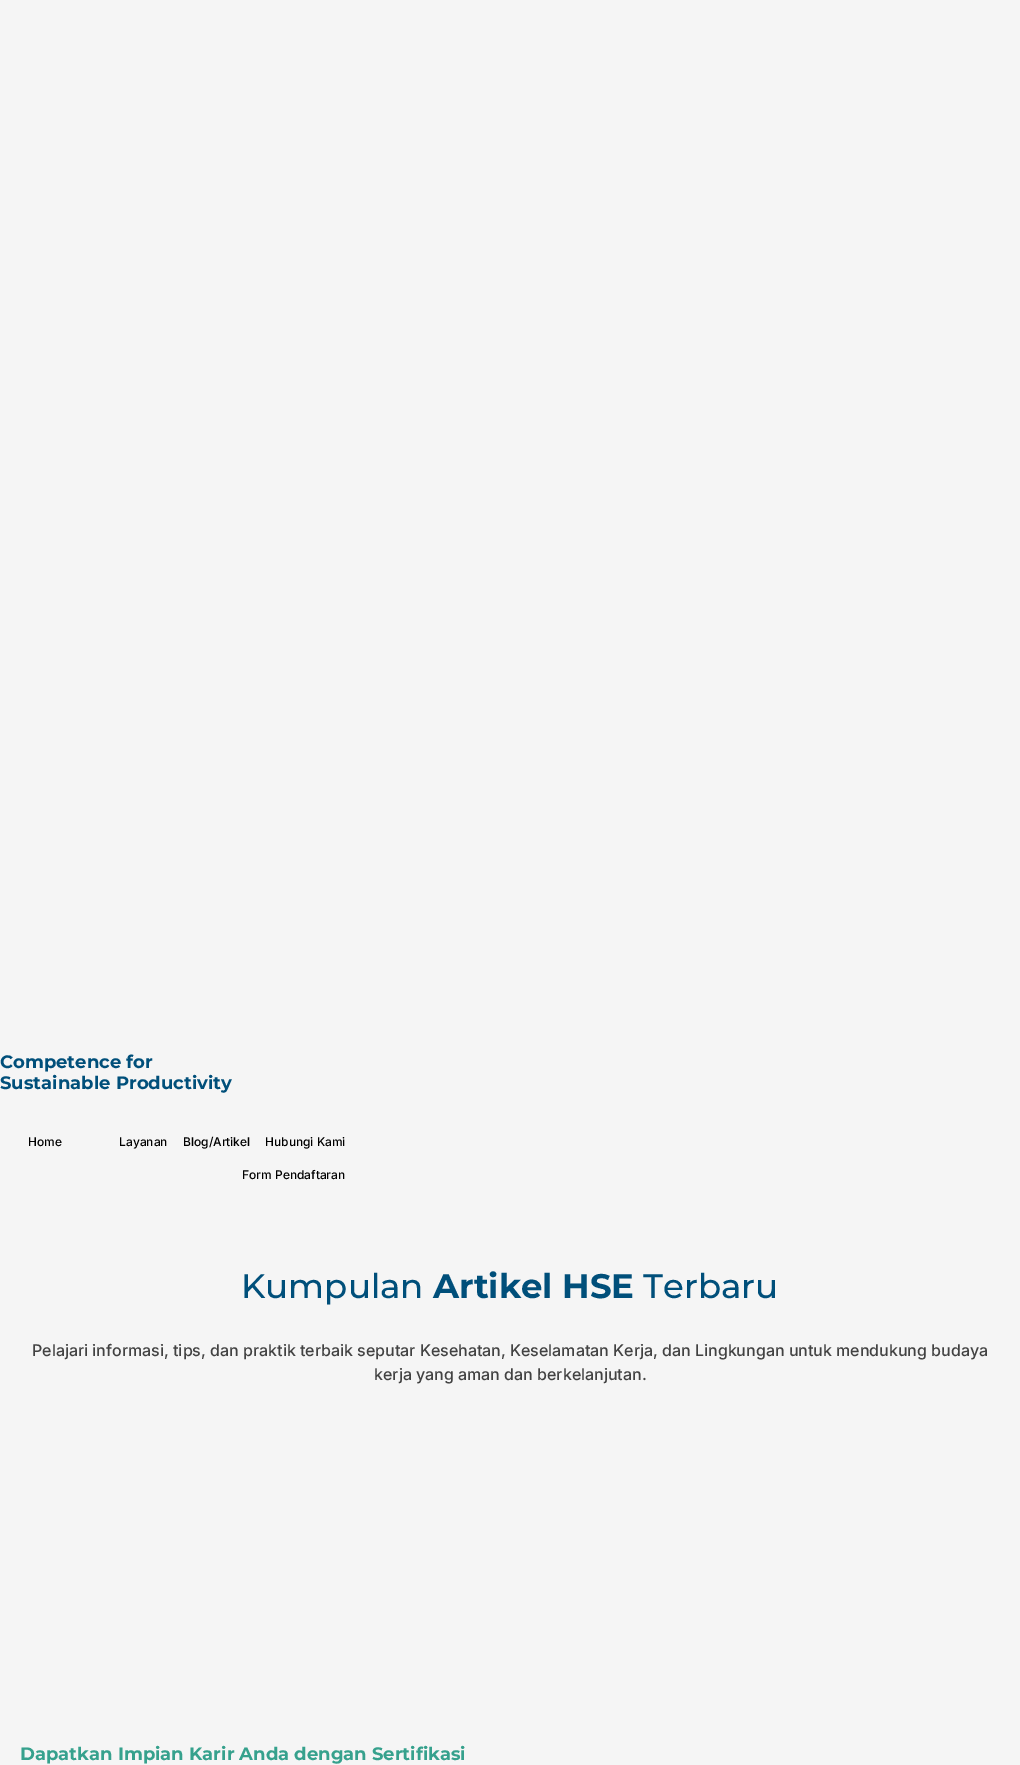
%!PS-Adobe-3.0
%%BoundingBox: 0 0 1020 1765
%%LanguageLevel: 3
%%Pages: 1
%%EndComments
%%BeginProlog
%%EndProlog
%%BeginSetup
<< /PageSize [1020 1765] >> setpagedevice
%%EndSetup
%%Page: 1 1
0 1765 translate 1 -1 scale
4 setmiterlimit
0.961 setgray
0 0 1020 1765 rectfill
/Montserrat-Bold [18 0 0 -18 0 0] selectfont
0 0.31 0.478 setrgbcolor
0 1068 moveto (Competence for) show
0 1089 moveto (Sustainable Productivity) show
/Inter-Medium [12 0 0 -12 0 0] selectfont
0 setgray
28 1146 moveto (Home) show
119 1146 moveto (Layanan) show
183 1146 moveto (Blog/Artikel) show
265 1146 moveto (Hubungi Kami) show
242 1179 moveto (Form Pendaftaran) show
/Montserrat-Medium [34 0 0 -34 0 0] selectfont
0 0.31 0.478 setrgbcolor
241 1298 moveto (Kumpulan) show
/Montserrat-Bold [34 0 0 -34 0 0] selectfont
433 1298 moveto (Artikel HSE) show
/Montserrat-Medium [34 0 0 -34 0 0] selectfont
643 1298 moveto (Terbaru) show
/Inter-Medium [16 0 0 -16 0 0] selectfont
0.259 setgray
32 1356 moveto (Pelajari informasi, tips, dan praktik terbaik seputar Kesehatan, Keselamatan Kerja, dan Lingkungan untuk mendukung budaya) show
374 1380 moveto (kerja yang aman dan berkelanjutan.) show
/Montserrat-Bold [18 0 0 -18 0 0] selectfont
0.212 0.631 0.553 setrgbcolor
20 1760 moveto (Dapatkan Impian Karir Anda dengan Sertifikasi) show
showpage
%%EOF
